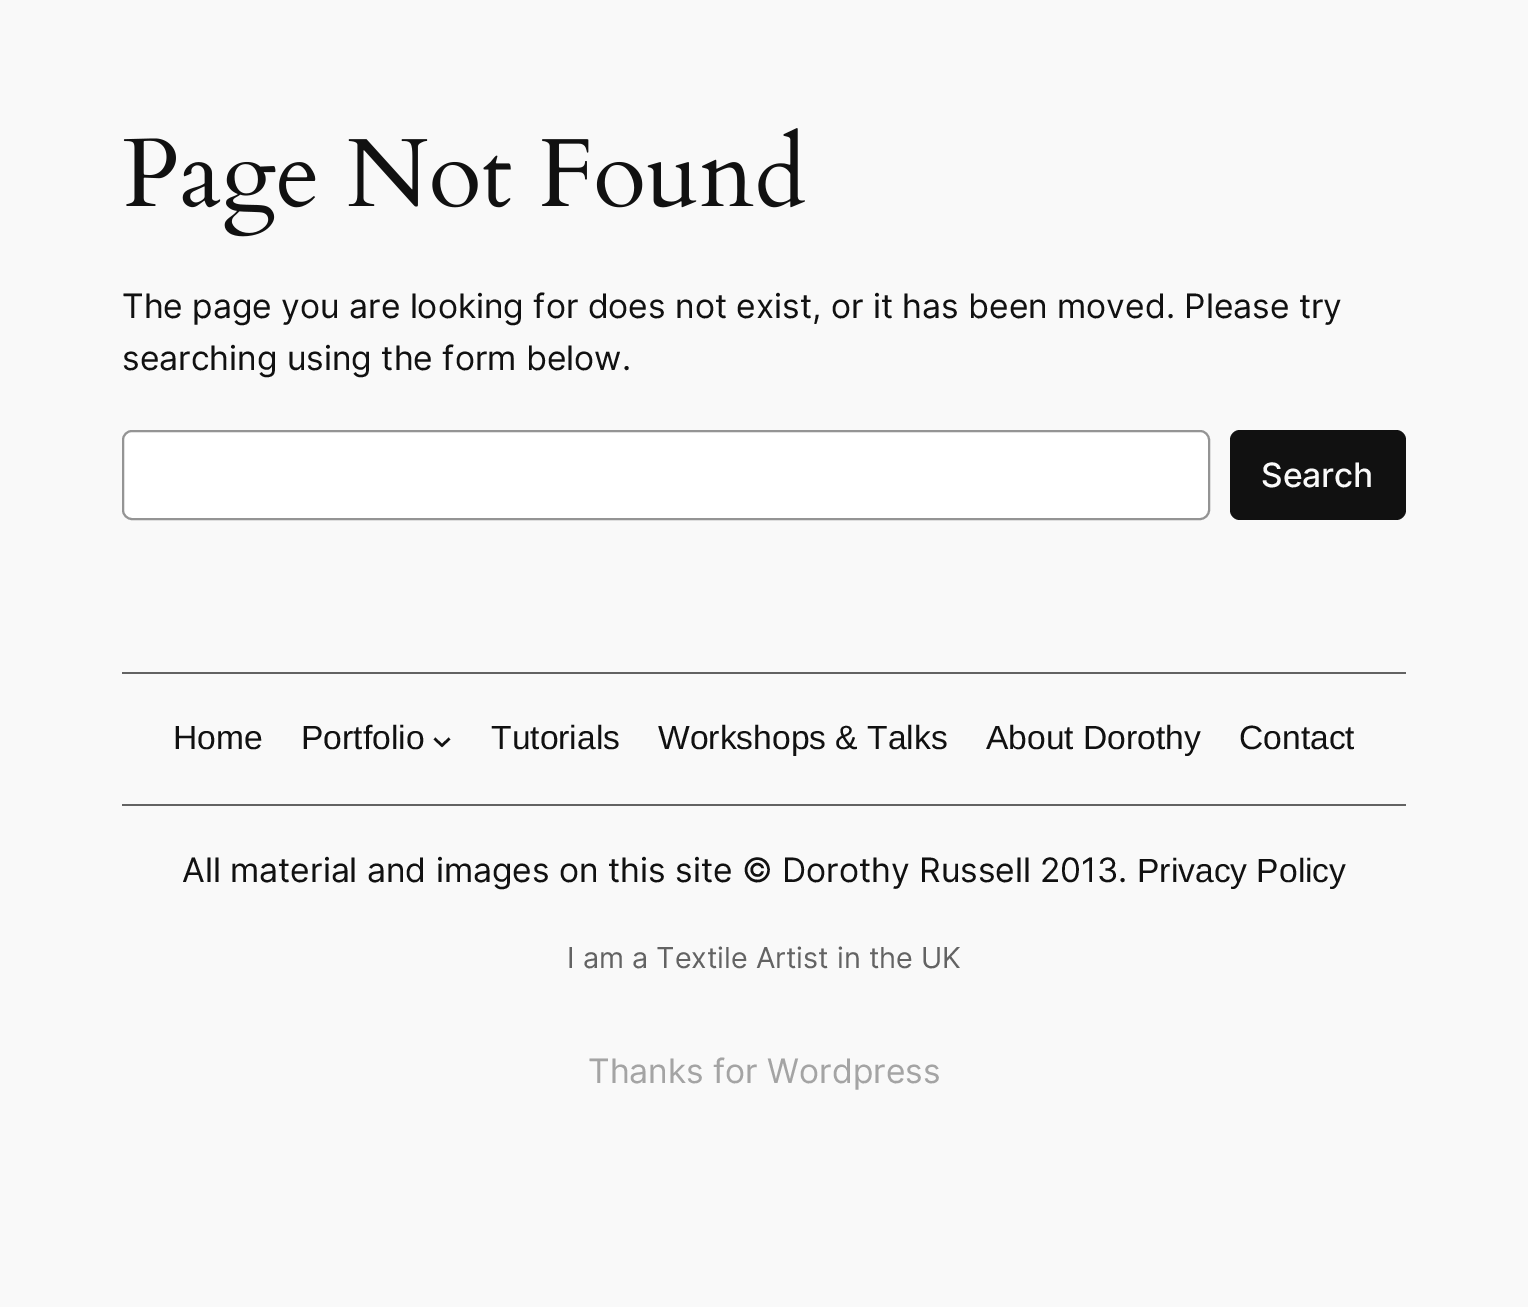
%!PS-Adobe-3.0
%%BoundingBox: 0 0 1528 1307
%%LanguageLevel: 3
%%Pages: 1
%%EndComments
%%BeginProlog
/rrect { 5 dict begin { /r /h /w /y /x } { exch def } forall
  x r add y moveto x w add y 2 copy h add r arct x w add y h add x 1 index r arct
  x y h add x y r arct x y 2 copy exch w add exch r arct closepath end } def
/drawimage { 5 dict begin { /h /w /y /x /name } { exch def } forall
  gsave x y translate w h scale
  w h 8 [w 0 0 h 0 0] name (r) file false 3 colorimage grestore end } def
%%EndProlog
%%BeginSetup
<< /PageSize [1528 1307] >> setpagedevice
%%EndSetup
%%Page: 1 1
0 1307 translate 1 -1 scale
4 setmiterlimit
0.976 setgray
0 0 1528 1307 rectfill
(images/1.raw) 123 128 682 109 drawimage
1 setgray
123 431 1086 88 9 rrect gsave fill grestore
0.58 setgray
2 setlinewidth
stroke
0.067 setgray
1230 430 176 90 10 rrect fill
0.388 setgray
122 672 1284 2 rectfill
0.067 setgray
2.5 setlinewidth
newpath 434.5 738.5 moveto 442 745.5 lineto 449.5 738.5 lineto stroke
0.388 setgray
122 804 1284 2 rectfill
/Inter-Regular [33.6 0 0 -33.6 0 0] selectfont
0.067 setgray
122 318 moveto (The page you are looking for does not exist, or it has been moved. Please try) show
122 370 moveto (searching using the form below.) show
/Inter-Medium [33.6 0 0 -33.6 0 0] selectfont
0.976 setgray
1261 487 moveto (Search) show
/LiberationSans-Regular [33.6 0 0 -33.6 0 0] selectfont
0.067 setgray
173 749 moveto (Home) show
301 749 moveto (Portfolio) show
491 749 moveto (Tutorials) show
658 749 moveto (Workshops & Talks) show
986 749 moveto (About Dorothy) show
1239 749 moveto (Contact) show
/Inter-Regular [33.6 0 0 -33.6 0 0] selectfont
182 882 moveto (All material and images on this site © Dorothy Russell 2013.) show
/LiberationSans-Regular [33.6 0 0 -33.6 0 0] selectfont
1137 882 moveto (Privacy Policy) show
/Inter-Regular [28.75 0 0 -28.75 0 0] selectfont
0.388 setgray
567 968 moveto (I am a Textile Artist in the UK) show
/Inter-Regular [33.6 0 0 -33.6 0 0] selectfont
0.643 setgray
588 1083 moveto (Thanks for Wordpress) show
showpage
%%EOF
